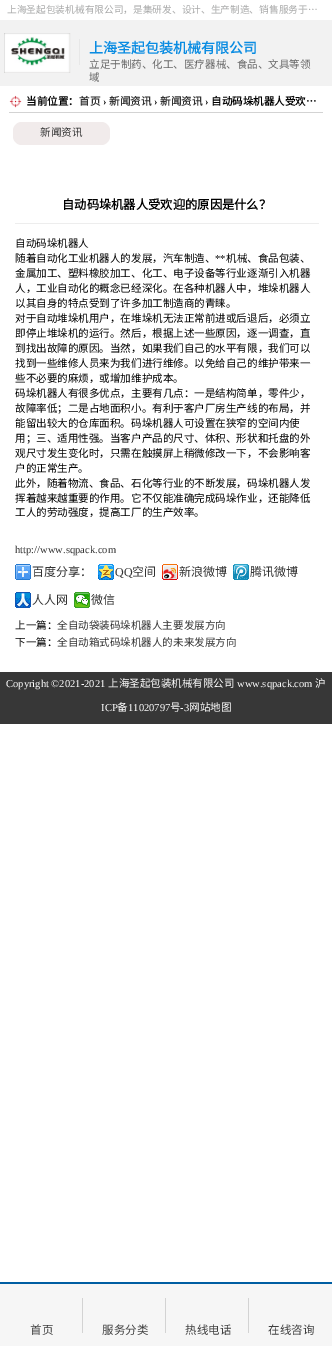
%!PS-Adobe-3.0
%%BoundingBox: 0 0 332 1346
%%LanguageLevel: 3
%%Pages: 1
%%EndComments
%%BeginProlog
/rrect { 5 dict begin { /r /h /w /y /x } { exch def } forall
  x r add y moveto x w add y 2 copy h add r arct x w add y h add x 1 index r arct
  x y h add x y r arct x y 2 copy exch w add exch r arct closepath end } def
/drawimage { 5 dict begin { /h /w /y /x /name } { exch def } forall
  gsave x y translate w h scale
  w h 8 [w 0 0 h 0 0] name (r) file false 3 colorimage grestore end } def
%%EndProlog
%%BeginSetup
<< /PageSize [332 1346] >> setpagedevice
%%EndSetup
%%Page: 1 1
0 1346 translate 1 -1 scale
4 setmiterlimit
1 setgray
0 0 332 1346 rectfill
0.949 setgray
0 20 332 66 rectfill
(images/1.raw) 4 33 67 40 drawimage
0.906 setgray
79 39 1 26 rectfill
(images/2.raw) 9 95 13 13 drawimage
0.827 setgray
9 112 314 1 rectfill
0.945 0.922 0.922 setrgbcolor
13 122 97 23 9 rrect fill
0.929 setgray
15 223 304 1 rectfill
(images/3.raw) 15 564 16 16 drawimage
(images/4.raw) 98 564 16 16 drawimage
(images/5.raw) 162 564 16 16 drawimage
(images/6.raw) 233 564 16 16 drawimage
(images/7.raw) 15 592 16 16 drawimage
(images/8.raw) 74 592 16 16 drawimage
0.216 setgray
0 672 332 52 rectfill
0.965 setgray
0 1284 332 62 rectfill
0 0.369 0.635 setrgbcolor
0 1282 332 2 rectfill
0.827 setgray
82 1298 1 35 rectfill
165 1298 1 35 rectfill
248 1298 1 35 rectfill
/NotoSansCJKSC-Regular [9.7 0 0 -9.7 0 0] selectfont
0.659 0.663 0.663 setrgbcolor
7 13 moveto (上海圣起包装机械有限公司，是集研发、设计、生产制造、销售服务于…) show
/NotoSansCJKSC-Bold [14 0 0 -14 0 0] selectfont
0.039 0.549 0.886 setrgbcolor
89 53 moveto (上海圣起包装机械有限公司) show
/NotoSansCJKSC-Regular [10.55 0 0 -10.55 0 0] selectfont
0.4 setgray
89 68 moveto (立足于制药、化工、医疗器械、食品、文具等领) show
89 81 moveto (域) show
/NotoSansCJKSC-Bold [10.55 0 0 -10.55 0 0] selectfont
0 setgray
26 105 moveto (当前位置：) show
0.2 setgray
79 105 moveto (首页) show
/LiberationSerif-Bold [10.55 0 0 -10.55 0 0] selectfont
0 setgray
103 105 moveto (›) show
/NotoSansCJKSC-Bold [10.55 0 0 -10.55 0 0] selectfont
0.2 setgray
109 105 moveto (新闻资讯) show
/LiberationSerif-Bold [10.55 0 0 -10.55 0 0] selectfont
0 setgray
154 105 moveto (›) show
/NotoSansCJKSC-Bold [10.55 0 0 -10.55 0 0] selectfont
0.2 setgray
160 105 moveto (新闻资讯) show
/LiberationSerif-Bold [10.55 0 0 -10.55 0 0] selectfont
0 setgray
205 105 moveto (›) show
/NotoSansCJKSC-Bold [10.55 0 0 -10.55 0 0] selectfont
211 105 moveto (自动码垛机器人受欢…) show
/NotoSansCJKSC-Regular [10.55 0 0 -10.55 0 0] selectfont
0.2 setgray
40 136 moveto (新闻资讯) show
/NotoSansCJKSC-Bold [12.3 0 0 -12.3 0 0] selectfont
0 setgray
62 209 moveto (自动码垛机器人受欢迎的原因是什么？) show
/NotoSansCJKSC-Regular [10.55 0 0 -10.55 0 0] selectfont
15 247 moveto (自动码垛机器人) show
15 262 moveto (随着自动化工业机器人的发展，汽车制造、) show
/LiberationSerif-Regular [10.55 0 0 -10.55 0 0] selectfont
215 262 moveto (**) show
/NotoSansCJKSC-Regular [10.55 0 0 -10.55 0 0] selectfont
226 262 moveto (机械、食品包装、) show
15 277 moveto (金属加工、塑料橡胶加工、化工、电子设备等行业逐渐引入机器) show
15 292 moveto (人，工业自动化的概念已经深化。在各种机器人中，堆垛机器人) show
15 307 moveto (以其自身的特点受到了许多加工制造商的青睐。) show
15 322 moveto (对于自动堆垛机用户，在堆垛机无法正常前进或后退后，必须立) show
15 337 moveto (即停止堆垛机的运行。然后，根据上述一些原因，逐一调查，直) show
15 352 moveto (到找出故障的原因。当然，如果我们自己的水平有限，我们可以) show
15 367 moveto (找到一些维修人员来为我们进行维修。以免给自己的维护带来一) show
15 382 moveto (些不必要的麻烦，或增加维护成本。) show
15 397 moveto (码垛机器人有很多优点，主要有几点：一是结构简单，零件少，) show
15 412 moveto (故障率低；二是占地面积小。有利于客户厂房生产线的布局，并) show
15 427 moveto (能留出较大的仓库面积。码垛机器人可设置在狭窄的空间内使) show
15 442 moveto (用；三、适用性强。当客户产品的尺寸、体积、形状和托盘的外) show
15 457 moveto (观尺寸发生变化时，只需在触摸屏上稍微修改一下，不会影响客) show
15 472 moveto (户的正常生产。) show
15 487 moveto (此外，随着物流、食品、石化等行业的不断发展，码垛机器人发) show
15 502 moveto (挥着越来越重要的作用。它不仅能准确完成码垛作业，还能降低) show
15 516 moveto (工人的劳动强度，提高工厂的生产效率。) show
/LiberationSerif-Regular [10.55 0 0 -10.55 0 0] selectfont
0.2 setgray
15 553 moveto (http://www.sqpack.com) show
/NotoSansCJKSC-Regular [12 0 0 -12 0 0] selectfont
32 576 moveto (百度分享：) show
/LiberationSerif-Regular [12 0 0 -12 0 0] selectfont
115 576 moveto (QQ) show
/NotoSansCJKSC-Regular [12 0 0 -12 0 0] selectfont
132 576 moveto (空间) show
179 576 moveto (新浪微博) show
250 576 moveto (腾讯微博) show
32 604 moveto (人人网) show
91 604 moveto (微信) show
/NotoSansCJKSC-Regular [10.55 0 0 -10.55 0 0] selectfont
0 setgray
15 629 moveto (上一篇：) show
0.2 setgray
57 629 moveto (全自动袋装码垛机器人主要发展方向) show
0 setgray
15 646 moveto (下一篇：) show
0.2 setgray
57 646 moveto (全自动箱式码垛机器人的未来发展方向) show
/LiberationSerif-Regular [10.55 0 0 -10.55 0 0] selectfont
1 setgray
6 687 moveto (Copyright ©2021-2021) show
/NotoSansCJKSC-Regular [10.55 0 0 -10.55 0 0] selectfont
108 687 moveto (上海圣起包装机械有限公司) show
/LiberationSerif-Regular [10.55 0 0 -10.55 0 0] selectfont
237 687 moveto (www.sqpack.com) show
/NotoSansCJKSC-Regular [10.55 0 0 -10.55 0 0] selectfont
315 687 moveto (沪) show
/LiberationSerif-Regular [10.55 0 0 -10.55 0 0] selectfont
101 711 moveto (ICP) show
/NotoSansCJKSC-Regular [10.55 0 0 -10.55 0 0] selectfont
117 711 moveto (备) show
/LiberationSerif-Regular [10.55 0 0 -10.55 0 0] selectfont
128 711 moveto (11020797) show
/NotoSansCJKSC-Regular [10.55 0 0 -10.55 0 0] selectfont
170 711 moveto (号) show
/LiberationSerif-Regular [10.55 0 0 -10.55 0 0] selectfont
180 711 moveto (-3) show
/NotoSansCJKSC-Regular [10.55 0 0 -10.55 0 0] selectfont
189 711 moveto (网站地图) show
/NotoSansCJKSC-Regular [11.5 0 0 -11.5 0 0] selectfont
0.247 setgray
30 1334 moveto (首页) show
102 1334 moveto (服务分类) show
185 1334 moveto (热线电话) show
268 1334 moveto (在线咨询) show
showpage
%%EOF
